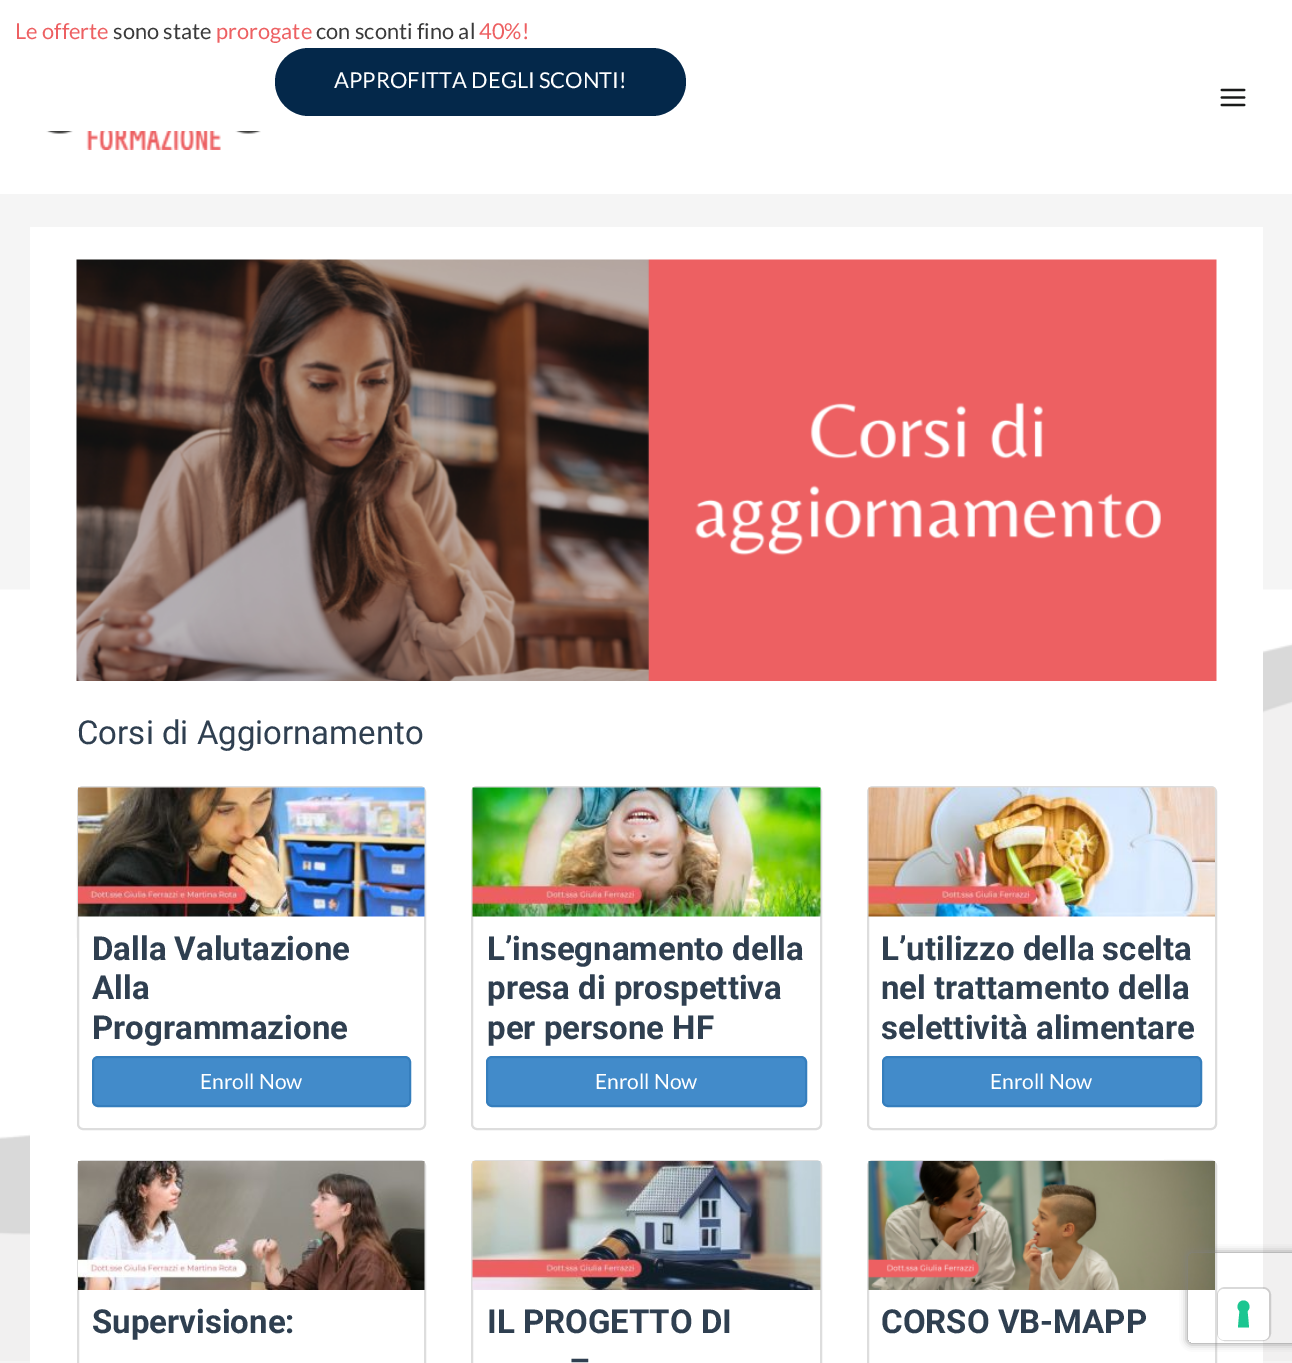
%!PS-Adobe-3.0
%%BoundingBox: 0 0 1292 1363
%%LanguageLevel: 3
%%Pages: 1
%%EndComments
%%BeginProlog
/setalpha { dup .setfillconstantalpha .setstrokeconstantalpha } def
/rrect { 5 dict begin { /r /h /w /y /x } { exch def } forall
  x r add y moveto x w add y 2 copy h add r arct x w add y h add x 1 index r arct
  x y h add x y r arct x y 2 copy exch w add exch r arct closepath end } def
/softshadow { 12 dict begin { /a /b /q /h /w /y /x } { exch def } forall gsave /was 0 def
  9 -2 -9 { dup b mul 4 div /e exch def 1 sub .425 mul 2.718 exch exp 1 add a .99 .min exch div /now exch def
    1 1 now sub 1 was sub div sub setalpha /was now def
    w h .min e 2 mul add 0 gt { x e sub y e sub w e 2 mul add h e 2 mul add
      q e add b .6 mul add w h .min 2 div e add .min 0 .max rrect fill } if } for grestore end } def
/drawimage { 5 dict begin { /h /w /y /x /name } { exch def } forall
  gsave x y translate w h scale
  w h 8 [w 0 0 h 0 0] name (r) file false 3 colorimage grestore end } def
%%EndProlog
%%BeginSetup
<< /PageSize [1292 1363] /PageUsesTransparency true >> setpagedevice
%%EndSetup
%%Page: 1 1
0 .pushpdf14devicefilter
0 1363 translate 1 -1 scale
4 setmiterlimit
0.961 setgray
0 0 1292 1363 rectfill
(images/1.raw) 0 589 1292 772 drawimage
1 setgray
0 0 1292 194 rectfill
0.016 0.157 0.29 setrgbcolor
275 48 411 68 34 rrect fill
(images/2.raw) 1220 88 26 19 drawimage
(images/3.raw) 46 131 215 19 drawimage
1 setgray
30 227 1233 1136 rectfill
(images/4.raw) 76 259 1141 422 drawimage
(images/5.raw) 76 835 1 103 drawimage
0.867 setgray
2 setlinewidth
78 787 347 342 5 rrect stroke
(images/6.raw) 78 787 347 130 drawimage
0.259 0.545 0.792 setrgbcolor
93 1057 317 49 5 rrect gsave fill grestore
0.208 0.494 0.741 setrgbcolor
stroke
0.867 setgray
472 787 349 342 5 rrect stroke
(images/7.raw) 472 787 349 130 drawimage
0.259 0.545 0.792 setrgbcolor
487 1057 319 49 5 rrect gsave fill grestore
0.208 0.494 0.741 setrgbcolor
stroke
0.867 setgray
868 787 348 342 5 rrect stroke
(images/8.raw) 868 787 347 130 drawimage
0.259 0.545 0.792 setrgbcolor
883 1057 318 49 5 rrect gsave fill grestore
0.208 0.494 0.741 setrgbcolor
stroke
0.867 setgray
78 1161 347 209 5 rrect stroke
(images/9.raw) 78 1161 347 129 drawimage
472 1161 349 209 5 rrect stroke
(images/10.raw) 472 1161 349 129 drawimage
(images/11.raw) 1164 1159 53 7 drawimage
868 1161 348 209 5 rrect stroke
(images/12.raw) 868 1161 347 129 drawimage
gsave
newpath 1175 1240 moveto 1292 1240 lineto 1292 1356 lineto 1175 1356 lineto closepath 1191 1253 moveto 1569 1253 lineto 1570.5 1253 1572 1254.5 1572 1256 curveto 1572 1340 lineto 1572 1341.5 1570.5 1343 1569 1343 curveto 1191 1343 lineto 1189.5 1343 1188 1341.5 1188 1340 curveto 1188 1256 lineto 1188 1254.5 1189.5 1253 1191 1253 curveto closepath eoclip newpath
0.502 setgray
1188 1253 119 90 3 4 1 softshadow
grestore
0.15 setalpha
0 setgray
1218 1288 52 52 7 rrect stroke
1 setalpha
1 setgray
1218 1289 51 51 6 rrect fill
0.11 0.776 0.569 setrgbcolor
newpath 1243.5 1300.5 moveto 1249 1300.5 1251.5 1307.5 1247.5 1311 curveto 1249 1327.5 lineto 1238 1327.5 lineto 1239.5 1311 lineto 1235.5 1307.5 1238 1300.5 1243.5 1300.5 curveto closepath eofill
/Lato-Regular [21.9 0 0 -21.9 0 0] selectfont
0.929 0.376 0.384 setrgbcolor
15 39 moveto (Le offerte) show
0.227 setgray
113 39 moveto (sono state) show
0.929 0.376 0.384 setrgbcolor
216 39 moveto (prorogate) show
0.227 setgray
316 39 moveto (con sconti fino al) show
0.929 0.376 0.384 setrgbcolor
479 39 moveto (40%!) show
1 setgray
334 88 moveto (APPROFITTA DEGLI SCONTI!) show
/Roboto-Regular [33 0 0 -33 0 0] selectfont
0.184 0.247 0.314 setrgbcolor
77 744 moveto (Corsi di Aggiornamento) show
/Roboto-Bold [33 0 0 -33 0 0] selectfont
92 960 moveto (Dalla Valutazione) show
92 999 moveto (Alla) show
92 1039 moveto (Programmazione) show
/Lato-Regular [21 0 0 -21 0 0] selectfont
1 setgray
200 1089 moveto (Enroll Now) show
/Roboto-Bold [33 0 0 -33 0 0] selectfont
0.184 0.247 0.314 setrgbcolor
487 960 moveto (L’insegnamento della) show
487 999 moveto (presa di prospettiva) show
487 1039 moveto (per persone HF) show
/Lato-Regular [21 0 0 -21 0 0] selectfont
1 setgray
595 1089 moveto (Enroll Now) show
/Roboto-Bold [33 0 0 -33 0 0] selectfont
0.184 0.247 0.314 setrgbcolor
881 960 moveto (L’utilizzo della scelta) show
881 999 moveto (nel trattamento della) show
881 1039 moveto (selettività alimentare) show
/Lato-Regular [21 0 0 -21 0 0] selectfont
1 setgray
990 1089 moveto (Enroll Now) show
/Roboto-Bold [33 0 0 -33 0 0] selectfont
0.184 0.247 0.314 setrgbcolor
92 1333 moveto (Supervisione:) show
487 1333 moveto (IL PROGETTO DI) show
569 1372 moveto (–) show
881 1333 moveto (CORSO VB-MAPP) show
.poppdf14devicefilter showpage
%%EOF
